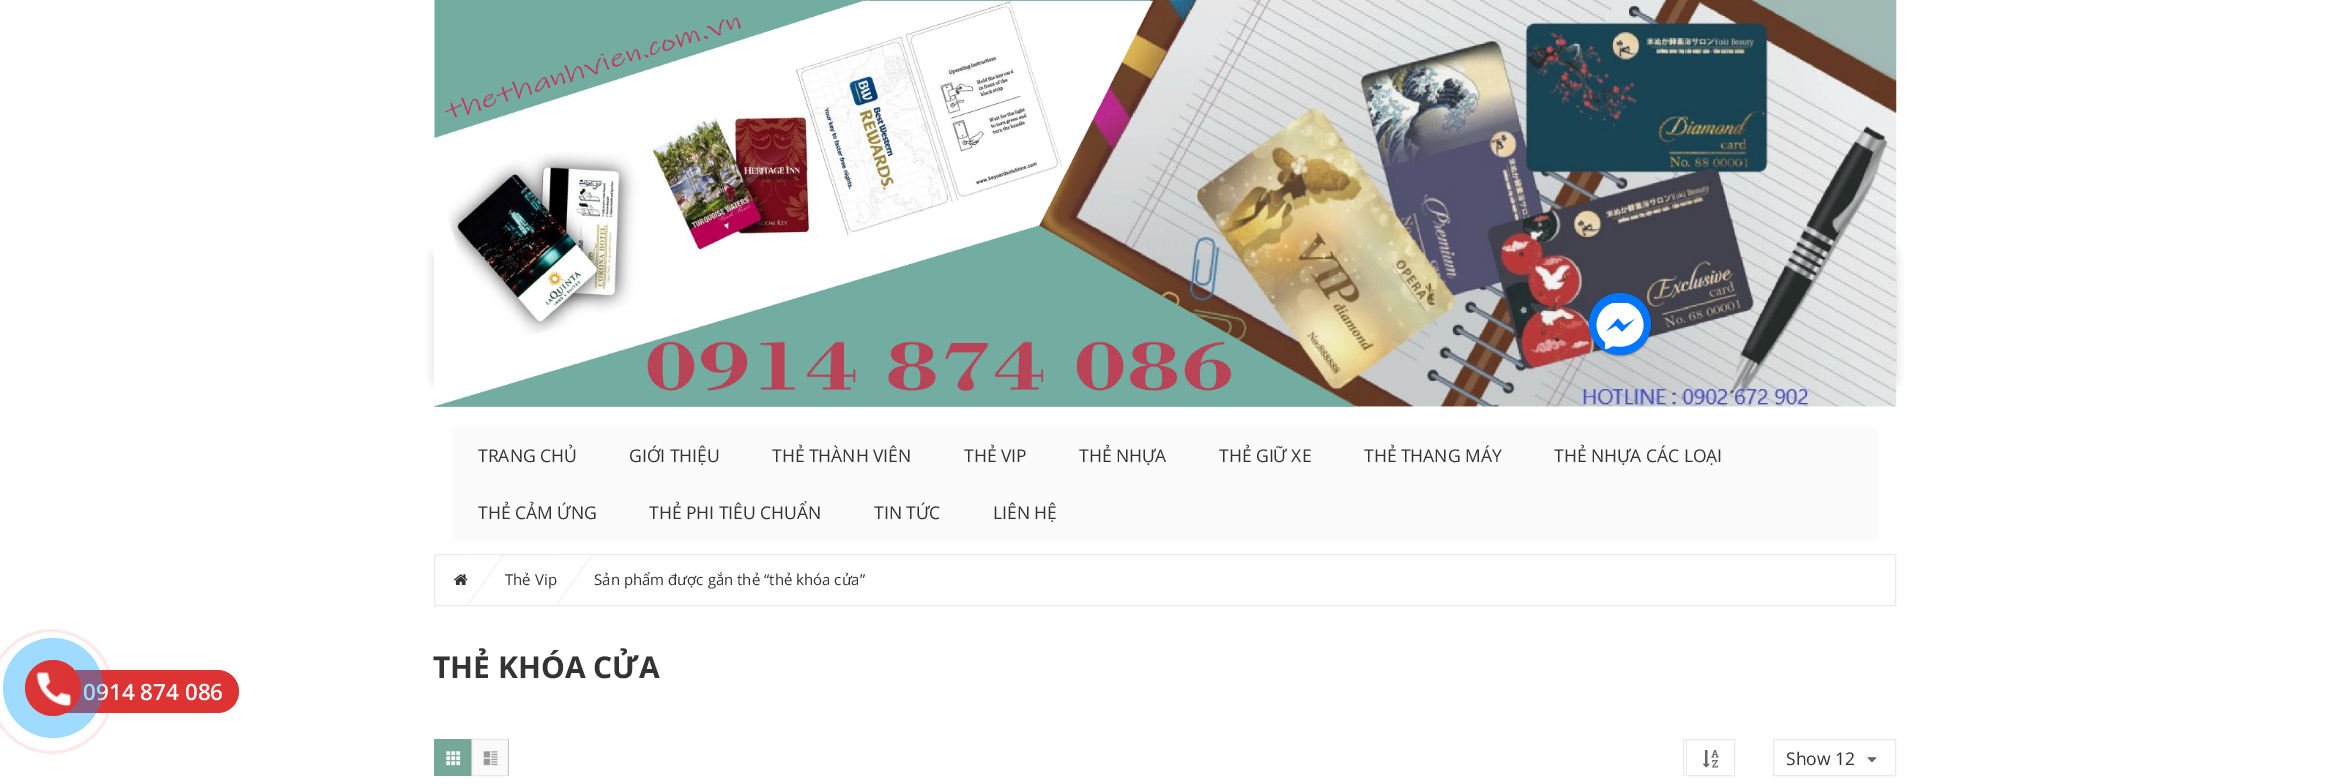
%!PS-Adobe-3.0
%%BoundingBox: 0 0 2328 784
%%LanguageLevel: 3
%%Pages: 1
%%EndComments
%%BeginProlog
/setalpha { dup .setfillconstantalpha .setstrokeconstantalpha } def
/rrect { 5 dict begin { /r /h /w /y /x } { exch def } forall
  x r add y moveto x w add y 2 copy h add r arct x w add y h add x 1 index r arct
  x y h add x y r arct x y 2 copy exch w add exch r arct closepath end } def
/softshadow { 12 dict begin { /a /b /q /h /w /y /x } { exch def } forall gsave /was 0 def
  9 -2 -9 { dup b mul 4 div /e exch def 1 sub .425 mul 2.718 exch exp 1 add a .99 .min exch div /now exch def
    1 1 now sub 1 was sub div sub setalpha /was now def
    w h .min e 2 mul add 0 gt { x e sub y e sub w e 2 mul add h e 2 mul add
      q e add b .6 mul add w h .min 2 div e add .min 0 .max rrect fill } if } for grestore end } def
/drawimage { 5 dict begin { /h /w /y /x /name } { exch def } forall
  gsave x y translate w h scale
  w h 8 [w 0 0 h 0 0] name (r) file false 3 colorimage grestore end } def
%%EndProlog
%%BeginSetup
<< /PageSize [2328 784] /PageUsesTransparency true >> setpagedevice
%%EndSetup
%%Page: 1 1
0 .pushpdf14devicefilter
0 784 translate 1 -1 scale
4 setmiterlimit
1 setgray
0 0 2328 784 rectfill
0 setgray
440 256 725 123 0 6 0.6 softshadow
1165 256 725 123 0 6 0.6 softshadow
(images/1.raw) 433 0 1464 407 drawimage
1589 294 62 62 31 1 0.4 softshadow
0 0.459 1 setrgbcolor
newpath 1620 324 31 0 360 arc closepath fill
gsave
1596 303 48 46 rectclip
1 setgray
newpath 1620 302 moveto 1599 302 1588 328 1605 342 curveto 1605 350 lineto 1613 346 lineto 1618 347 1624 347 1629 345 curveto 1653 336 1645 302 1620 302 curveto closepath 1622 332 moveto 1616 326 lineto 1605 332 lineto 1618 318 lineto 1624 325 lineto 1636 318 lineto closepath fill
grestore
0.984 setgray
453 426 1425 115 rectfill
0.867 0.2 0.2 setrgbcolor
newpath 64 670 moveto 217.5 670 lineto 229.5 670 239 679.5 239 691.5 curveto 239 703.5 229.5 713 217.5 713 curveto 64 713 lineto closepath fill
0.1 setalpha
3 setlinewidth
newpath 51.5 691.5 61 0 360 arc closepath stroke
1 setalpha
0.918 setgray
1 setlinewidth
434.5 554.5 1461 51 rectstroke
(images/3.raw) 454 574 14 11 drawimage
(images/4.raw) 468 555 36 49 drawimage
(images/5.raw) 557 555 36 49 drawimage
0.459 0.659 0.6 setrgbcolor
434 739 37 37 rectfill
(images/6.raw) 446 751 15 15 drawimage
(images/7.raw) 471 738 38 39 drawimage
0.918 setgray
1683.5 739.5 51 36 rectstroke
0.91 setgray
1686 740 1 34 rectfill
(images/8.raw) 1702 750 17 18 drawimage
0.918 setgray
1773.5 739.5 122 36 rectstroke
(images/9.raw) 1867 757 10 6 drawimage
/OpenSans-Regular [17.5 0 0 -17.5 0 0] selectfont
0.2 setgray
478 462 moveto (TRANG CHỦ) show
629 462 moveto (GIỚI THIỆU) show
772 462 moveto (THẺ THÀNH VIÊN) show
964 462 moveto (THẺ VIP) show
1079 462 moveto (THẺ NHỰA) show
1219 462 moveto (THẺ GIỮ XE) show
1364 462 moveto (THẺ THANG MÁY) show
1554 462 moveto (THẺ NHỰA CÁC LOẠI) show
478 519 moveto (THẺ CẢM ỨNG) show
649 519 moveto (THẺ PHI TIÊU CHUẨN) show
874 519 moveto (TIN TỨC) show
993 519 moveto (LIÊN HỆ) show
/OpenSans-SemiBold [22.5 0 0 -22.5 0 0] selectfont
1 setgray
83 700 moveto (0914 874 086) show
0.38 setalpha
0 0.631 1 setrgbcolor
newpath 53 688 50 0 360 arc closepath fill
0.99 setalpha
0.867 0.2 0.2 setrgbcolor
newpath 53 688 28 0 360 arc closepath fill
1 setalpha
(images/2.raw) 36 672 36 35 drawimage
/OpenSans-Regular [15 0 0 -15 0 0] selectfont
0.2 setgray
505 585 moveto (Thẻ Vip) show
594 585 moveto (Sản phẩm được gắn thẻ “thẻ khóa cửa”) show
/OpenSans-Bold [30 0 0 -30 0 0] selectfont
433 678 moveto (THẺ KHÓA CỬA) show
/OpenSans-Regular [17.5 0 0 -17.5 0 0] selectfont
1786 765 moveto (Show 12) show
.poppdf14devicefilter showpage
%%EOF
